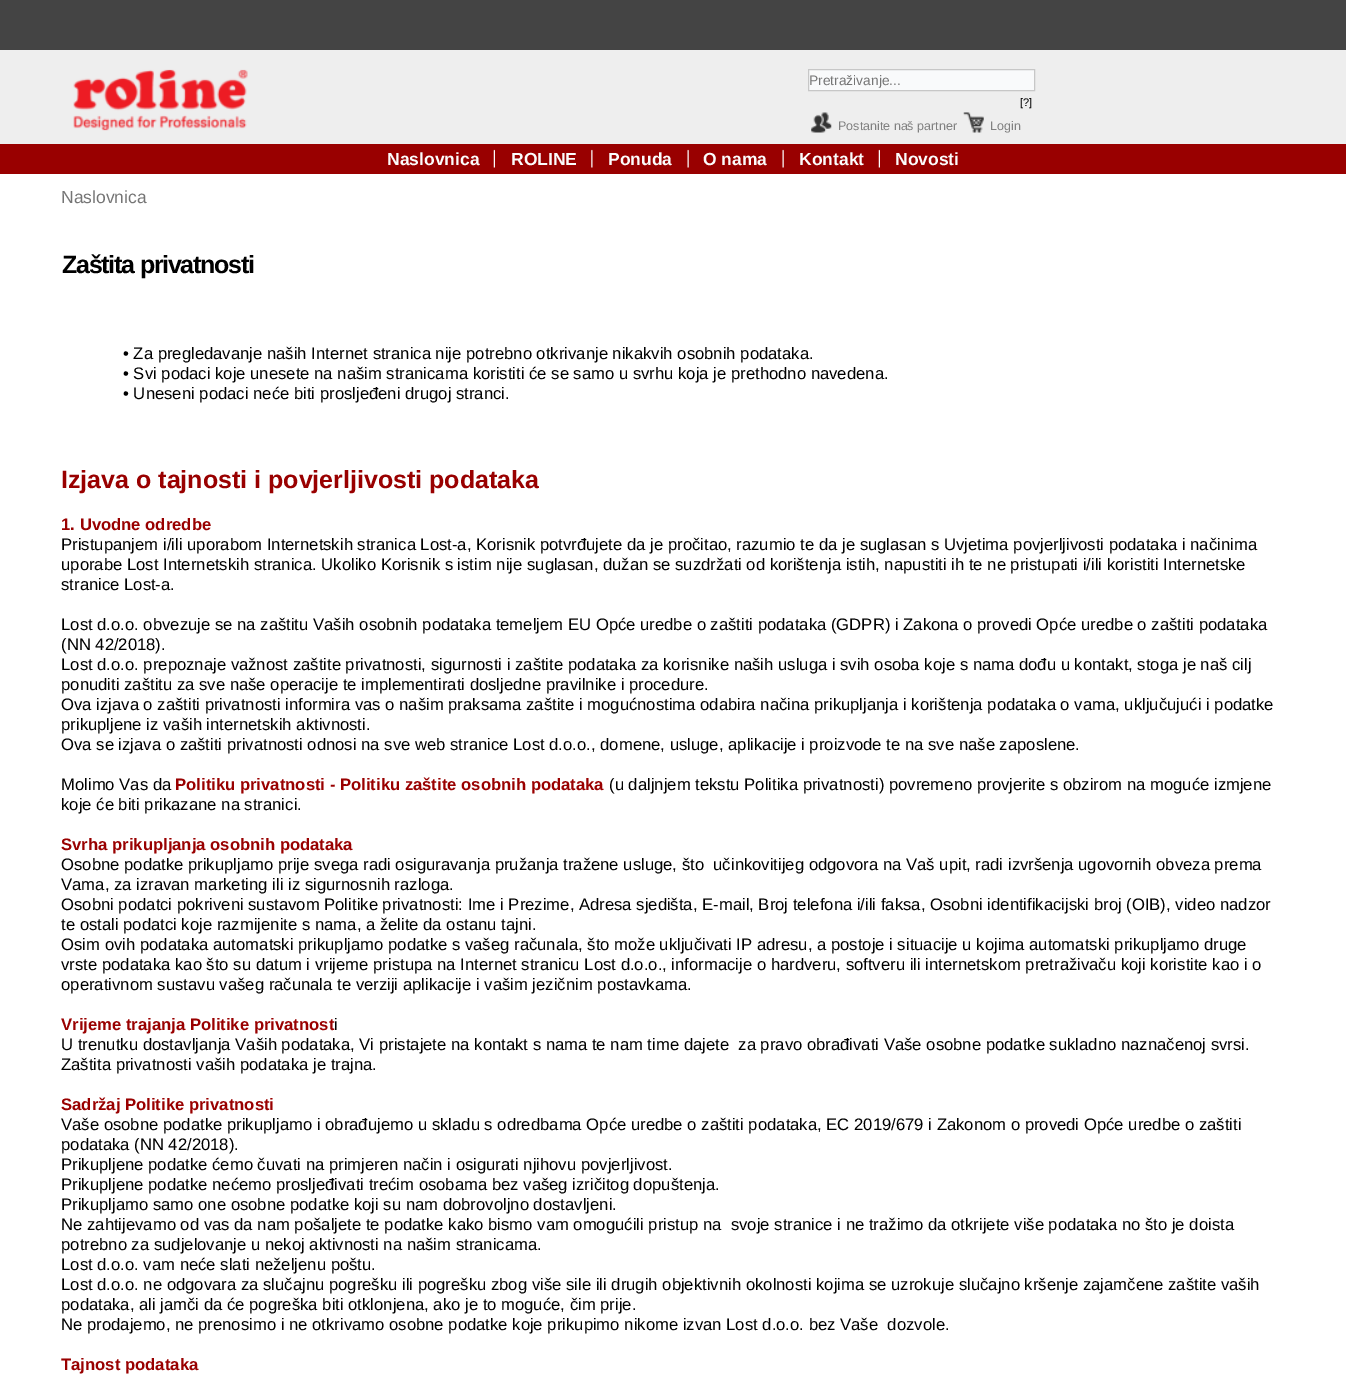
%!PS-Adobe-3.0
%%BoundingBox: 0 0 1346 1377
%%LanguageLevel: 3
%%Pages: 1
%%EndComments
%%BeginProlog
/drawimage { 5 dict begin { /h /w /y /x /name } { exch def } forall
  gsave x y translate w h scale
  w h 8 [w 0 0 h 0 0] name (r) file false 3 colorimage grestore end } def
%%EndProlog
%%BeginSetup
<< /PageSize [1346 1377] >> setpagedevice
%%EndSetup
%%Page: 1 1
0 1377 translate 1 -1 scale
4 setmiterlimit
1 setgray
0 0 1346 1377 rectfill
0.933 setgray
0 50 1346 94 rectfill
0.267 setgray
0 0 1346 50 rectfill
(images/1.raw) 73 69 175 62 drawimage
0.976 0.98 0.984 setrgbcolor
newpath 808.5 69.5 moveto 1034.5 69.5 lineto 1034.5 90.5 lineto 808.5 90.5 lineto closepath gsave fill grestore
0.78 setgray
stroke
(images/2.raw) 811 112 21 21 drawimage
(images/3.raw) 963 112 21 21 drawimage
0.6 0 0 setrgbcolor
0 144 1346 30 rectfill
(images/4.raw) 493 149 2 19 drawimage
(images/5.raw) 591 149 2 19 drawimage
(images/6.raw) 687 149 2 19 drawimage
(images/6.raw) 782 149 2 19 drawimage
(images/4.raw) 878 149 2 19 drawimage
/LiberationSans-Regular [13.75 0 0 -13.75 0 0] selectfont
0.459 setgray
809 85 moveto (Pretraživanje...) show
/LiberationSans-Regular [11 0 0 -11 0 0] selectfont
0 setgray
1020 106 moveto ([?]) show
/LiberationSans-Regular [12.5 0 0 -12.5 0 0] selectfont
0.502 setgray
838 130 moveto (Postanite naš partner) show
990 130 moveto (Login) show
/LiberationSans-Bold [17.5 0 0 -17.5 0 0] selectfont
0.988 setgray
387 165 moveto (Naslovnica) show
511 165 moveto (ROLINE) show
608 165 moveto (Ponuda) show
703 165 moveto (O nama) show
799 165 moveto (Kontakt) show
895 165 moveto (Novosti) show
/LiberationSans-Regular [17.5 0 0 -17.5 0 0] selectfont
0.459 setgray
61 203 moveto (Naslovnica) show
/LiberationSans-Bold [25 0 0 -25 0 0] selectfont
0 setgray
62 273 moveto -1.25 0 (Zaštita privatnosti) ashow
/LiberationSans-Regular [16.67 0 0 -16.67 0 0] selectfont
123 359 moveto (• Za pregledavanje naših Internet stranica nije potrebno otkrivanje nikakvih osobnih podataka.) show
123 379 moveto (• Svi podaci koje unesete na našim stranicama koristiti će se samo u svrhu koja je prethodno navedena.) show
123 399 moveto (• Uneseni podaci neće biti prosljeđeni drugoj stranci.) show
/LiberationSans-Bold [25 0 0 -25 0 0] selectfont
0.6 0 0 setrgbcolor
61 488 moveto (Izjava o tajnosti i povjerljivosti podataka) show
/LiberationSans-Bold [16.67 0 0 -16.67 0 0] selectfont
61 530 moveto (1. Uvodne odredbe) show
/LiberationSans-Regular [16.67 0 0 -16.67 0 0] selectfont
0 setgray
61 550 moveto (Pristupanjem i/ili uporabom Internetskih stranica Lost-a, Korisnik potvrđujete da je pročitao, razumio te da je suglasan s Uvjetima povjerljivosti podataka i načinima) show
61 570 moveto (uporabe Lost Internetskih stranica. Ukoliko Korisnik s istim nije suglasan, dužan se suzdržati od korištenja istih, napustiti ih te ne pristupati i/ili koristiti Internetske) show
61 590 moveto (stranice Lost-a.) show
61 630 moveto (Lost d.o.o. obvezuje se na zaštitu Vaših osobnih podataka temeljem EU Opće uredbe o zaštiti podataka \(GDPR\) i Zakona o provedi Opće uredbe o zaštiti podataka) show
61 650 moveto (\(NN 42/2018\).) show
61 670 moveto (Lost d.o.o. prepoznaje važnost zaštite privatnosti, sigurnosti i zaštite podataka za korisnike naših usluga i svih osoba koje s nama dođu u kontakt, stoga je naš cilj) show
61 690 moveto (ponuditi zaštitu za sve naše operacije te implementirati dosljedne pravilnike i procedure.) show
61 710 moveto (Ova izjava o zaštiti privatnosti informira vas o našim praksama zaštite i mogućnostima odabira načina prikupljanja i korištenja podataka o vama, uključujući i podatke) show
61 730 moveto (prikupljene iz vaših internetskih aktivnosti.) show
61 750 moveto (Ova se izjava o zaštiti privatnosti odnosi na sve web stranice Lost d.o.o., domene, usluge, aplikacije i proizvode te na sve naše zaposlene.) show
61 790 moveto (Molimo Vas da) show
/LiberationSans-Bold [16.67 0 0 -16.67 0 0] selectfont
0.6 0 0 setrgbcolor
175 790 moveto (Politiku privatnosti ‐ Politiku zaštite osobnih podataka) show
/LiberationSans-Regular [16.67 0 0 -16.67 0 0] selectfont
0 setgray
609 790 moveto (\(u daljnjem tekstu Politika privatnosti\) povremeno provjerite s obzirom na moguće izmjene) show
61 810 moveto (koje će biti prikazane na stranici.) show
/LiberationSans-Bold [16.67 0 0 -16.67 0 0] selectfont
0.6 0 0 setrgbcolor
61 850 moveto (Svrha prikupljanja osobnih podataka) show
/LiberationSans-Regular [16.67 0 0 -16.67 0 0] selectfont
0 setgray
61 870 moveto (Osobne podatke prikupljamo prije svega radi osiguravanja pružanja tražene usluge, što  učinkovitijeg odgovora na Vaš upit, radi izvršenja ugovornih obveza prema) show
61 890 moveto (Vama, za izravan marketing ili iz sigurnosnih razloga.) show
61 910 moveto (Osobni podatci pokriveni sustavom Politike privatnosti: Ime i Prezime, Adresa sjedišta, E‐mail, Broj telefona i/ili faksa, Osobni identifikacijski broj \(OIB\), video nadzor) show
61 930 moveto (te ostali podatci koje razmijenite s nama, a želite da ostanu tajni.) show
61 950 moveto (Osim ovih podataka automatski prikupljamo podatke s vašeg računala, što može uključivati IP adresu, a postoje i situacije u kojima automatski prikupljamo druge) show
61 970 moveto (vrste podataka kao što su datum i vrijeme pristupa na Internet stranicu Lost d.o.o., informacije o hardveru, softveru ili internetskom pretraživaču koji koristite kao i o) show
61 990 moveto (operativnom sustavu vašeg računala te verziji aplikacije i vašim jezičnim postavkama.) show
/LiberationSans-Bold [16.67 0 0 -16.67 0 0] selectfont
0.6 0 0 setrgbcolor
61 1030 moveto (Vrijeme trajanja Politike privatnost) show
/LiberationSans-Regular [16.67 0 0 -16.67 0 0] selectfont
0 setgray
334 1030 moveto (i) show
61 1050 moveto (U trenutku dostavljanja Vaših podataka, Vi pristajete na kontakt s nama te nam time dajete  za pravo obrađivati Vaše osobne podatke sukladno naznačenoj svrsi.) show
61 1070 moveto (Zaštita privatnosti vaših podataka je trajna.) show
/LiberationSans-Bold [16.67 0 0 -16.67 0 0] selectfont
0.6 0 0 setrgbcolor
61 1110 moveto (Sadržaj Politike privatnosti) show
/LiberationSans-Regular [16.67 0 0 -16.67 0 0] selectfont
0 setgray
61 1130 moveto (Vaše osobne podatke prikupljamo i obrađujemo u skladu s odredbama Opće uredbe o zaštiti podataka, EC 2019/679 i Zakonom o provedi Opće uredbe o zaštiti) show
61 1150 moveto (podataka \(NN 42/2018\).) show
61 1170 moveto (Prikupljene podatke ćemo čuvati na primjeren način i osigurati njihovu povjerljivost.) show
61 1190 moveto (Prikupljene podatke nećemo prosljeđivati trećim osobama bez vašeg izričitog dopuštenja.) show
61 1210 moveto (Prikupljamo samo one osobne podatke koji su nam dobrovoljno dostavljeni.) show
61 1230 moveto (Ne zahtijevamo od vas da nam pošaljete te podatke kako bismo vam omogućili pristup na  svoje stranice i ne tražimo da otkrijete više podataka no što je doista) show
61 1250 moveto (potrebno za sudjelovanje u nekoj aktivnosti na našim stranicama.) show
61 1270 moveto (Lost d.o.o. vam neće slati neželjenu poštu.) show
61 1290 moveto (Lost d.o.o. ne odgovara za slučajnu pogrešku ili pogrešku zbog više sile ili drugih objektivnih okolnosti kojima se uzrokuje slučajno kršenje zajamčene zaštite vaših) show
61 1310 moveto (podataka, ali jamči da će pogreška biti otklonjena, ako je to moguće, čim prije.) show
61 1330 moveto (Ne prodajemo, ne prenosimo i ne otkrivamo osobne podatke koje prikupimo nikome izvan Lost d.o.o. bez Vaše  dozvole.) show
/LiberationSans-Bold [16.67 0 0 -16.67 0 0] selectfont
0.6 0 0 setrgbcolor
61 1370 moveto (Tajnost podataka) show
showpage
%%EOF
